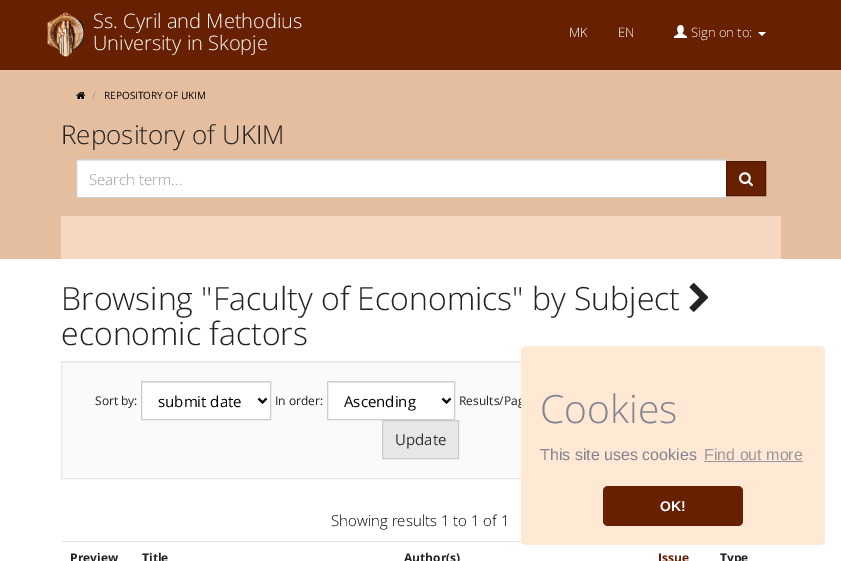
%!PS-Adobe-3.0
%%BoundingBox: 0 0 841 561
%%LanguageLevel: 3
%%Pages: 1
%%EndComments
%%BeginProlog
/rrect { 5 dict begin { /r /h /w /y /x } { exch def } forall
  x r add y moveto x w add y 2 copy h add r arct x w add y h add x 1 index r arct
  x y h add x y r arct x y 2 copy exch w add exch r arct closepath end } def
/drawimage { 5 dict begin { /h /w /y /x /name } { exch def } forall
  gsave x y translate w h scale
  w h 8 [w 0 0 h 0 0] name (r) file false 3 colorimage grestore end } def
%%EndProlog
%%BeginSetup
<< /PageSize [841 561] >> setpagedevice
%%EndSetup
%%Page: 1 1
0 561 translate 1 -1 scale
4 setmiterlimit
1 setgray
0 0 841 561 rectfill
0.404 0.125 0.004 setrgbcolor
0 0 841 70 rectfill
(images/1.raw) 47 12 37 45 drawimage
(images/2.raw) 674 25 13 13 drawimage
1 setgray
newpath 758 32 moveto 766 32 lineto 762 36 lineto closepath fill
0.894 0.745 0.624 setrgbcolor
0 70 841 189 rectfill
(images/3.raw) 76 91 10 8 drawimage
1 setgray
77 161 649 36 rectfill
0.925 setgray
77 160 649 1 rectfill
0.8 setgray
76.5 159.5 650 38 rectstroke
0.404 0.125 0.004 setrgbcolor
newpath 726.5 161.5 moveto 765.5 161.5 lineto 765.5 195.5 lineto 726.5 195.5 lineto closepath gsave fill grestore
0.306 0.094 0.004 setrgbcolor
stroke
(images/4.raw) 739 172 14 15 drawimage
0.965 0.847 0.753 setrgbcolor
61 216 720 43 rectfill
(images/5.raw) 689 283 20 29 drawimage
0.98 setgray
62 363 459 115 rectfill
0.933 setgray
62 362 459 1 rectfill
0.91 setgray
61.5 361.5 719 117 rectstroke
1 setgray
142 383 128 36 rectfill
0.925 setgray
142 382 128 1 rectfill
0.8 setgray
141.5 381.5 129 38 rectstroke
0 setgray
2 setlinewidth
newpath 258.5 398.5 moveto 262.5 402.5 lineto 266.5 398.5 lineto stroke
1 setgray
328 383 126 36 rectfill
0.925 setgray
328 382 126 1 rectfill
0.8 setgray
1 setlinewidth
327.5 381.5 127 38 rectstroke
0 setgray
2 setlinewidth
newpath 442.5 398.5 moveto 446.5 402.5 lineto 450.5 398.5 lineto stroke
0.906 setgray
newpath 382.5 420.5 moveto 458.5 420.5 lineto 458.5 458.5 lineto 382.5 458.5 lineto closepath gsave fill grestore
0.8 setgray
1 setlinewidth
stroke
0.894 setgray
62 541 460 1 rectfill
/OpenSans-Light [20 0 0 -20 0 0] selectfont
1 setgray
93 28 moveto (Ss. Cyril and Methodius) show
93 50 moveto (University in Skopje) show
/OpenSans-Light [13 0 0 -13 0 0] selectfont
569 37 moveto (MK) show
618 37 moveto (EN) show
691 37 moveto (Sign on to:) show
/OpenSans-Regular [10 0 0 -10 0 0] selectfont
0.6 setgray
92 99 moveto (/) show
0 setgray
104 99 moveto (REPOSITORY OF UKIM) show
/OpenSans-Light [26 0 0 -26 0 0] selectfont
0.133 setgray
61 144 moveto (Repository of UKIM) show
/OpenSans-Light [15 0 0 -15 0 0] selectfont
0.6 setgray
89 185 moveto (Search term...) show
/OpenSans-Light [32 0 0 -32 0 0] selectfont
0.133 setgray
61 310 moveto (Browsing "Faculty of Economics" by Subject) show
61 345 moveto (economic factors) show
/OpenSans-Regular [12 0 0 -12 0 0] selectfont
95 405 moveto (Sort by:) show
/OpenSans-Regular [15 0 0 -15 0 0] selectfont
0 setgray
158 407 moveto (submit date) show
/OpenSans-Regular [12 0 0 -12 0 0] selectfont
0.133 setgray
275 405 moveto (In order:) show
/OpenSans-Regular [15 0 0 -15 0 0] selectfont
0 setgray
344 407 moveto (Ascending) show
/OpenSans-Regular [12 0 0 -12 0 0] selectfont
0.133 setgray
459 405 moveto (Results/Pag) show
/OpenSans-Regular [15 0 0 -15 0 0] selectfont
0.2 setgray
395 445 moveto (Update) show
/OpenSans-Light [15 0 0 -15 0 0] selectfont
0 setgray
331 526 moveto (Showing results 1 to 1 of 1) show
/OpenSans-Bold [12 0 0 -12 0 0] selectfont
0.133 setgray
70 562 moveto (Preview) show
142 562 moveto (Title) show
404 562 moveto (Author\(s\)) show
0.404 0.125 0.004 setrgbcolor
658 562 moveto (Issue) show
0.133 setgray
720 562 moveto (Type) show
1 0.91 0.831 setrgbcolor
521 346 304 199 5 rrect fill
/OpenSans-Light [39 0 0 -39 0 0] selectfont
0.514 0.514 0.569 setrgbcolor
540 423 moveto (Cookies) show
/LiberationSans-Regular [16 0 0 -16 0 0] selectfont
540 460 moveto (This site uses cookies) show
0.6 setgray
704 460 moveto (Find out more) show
0.612 0.592 0.62 setrgbcolor
704 461 99 1 rectfill
0.404 0.125 0.004 setrgbcolor
603 486 140 40 5 rrect fill
/LiberationSans-Bold [14 0 0 -14 0 0] selectfont
1 setgray
660 511 moveto (OK!) show
showpage
%%EOF
